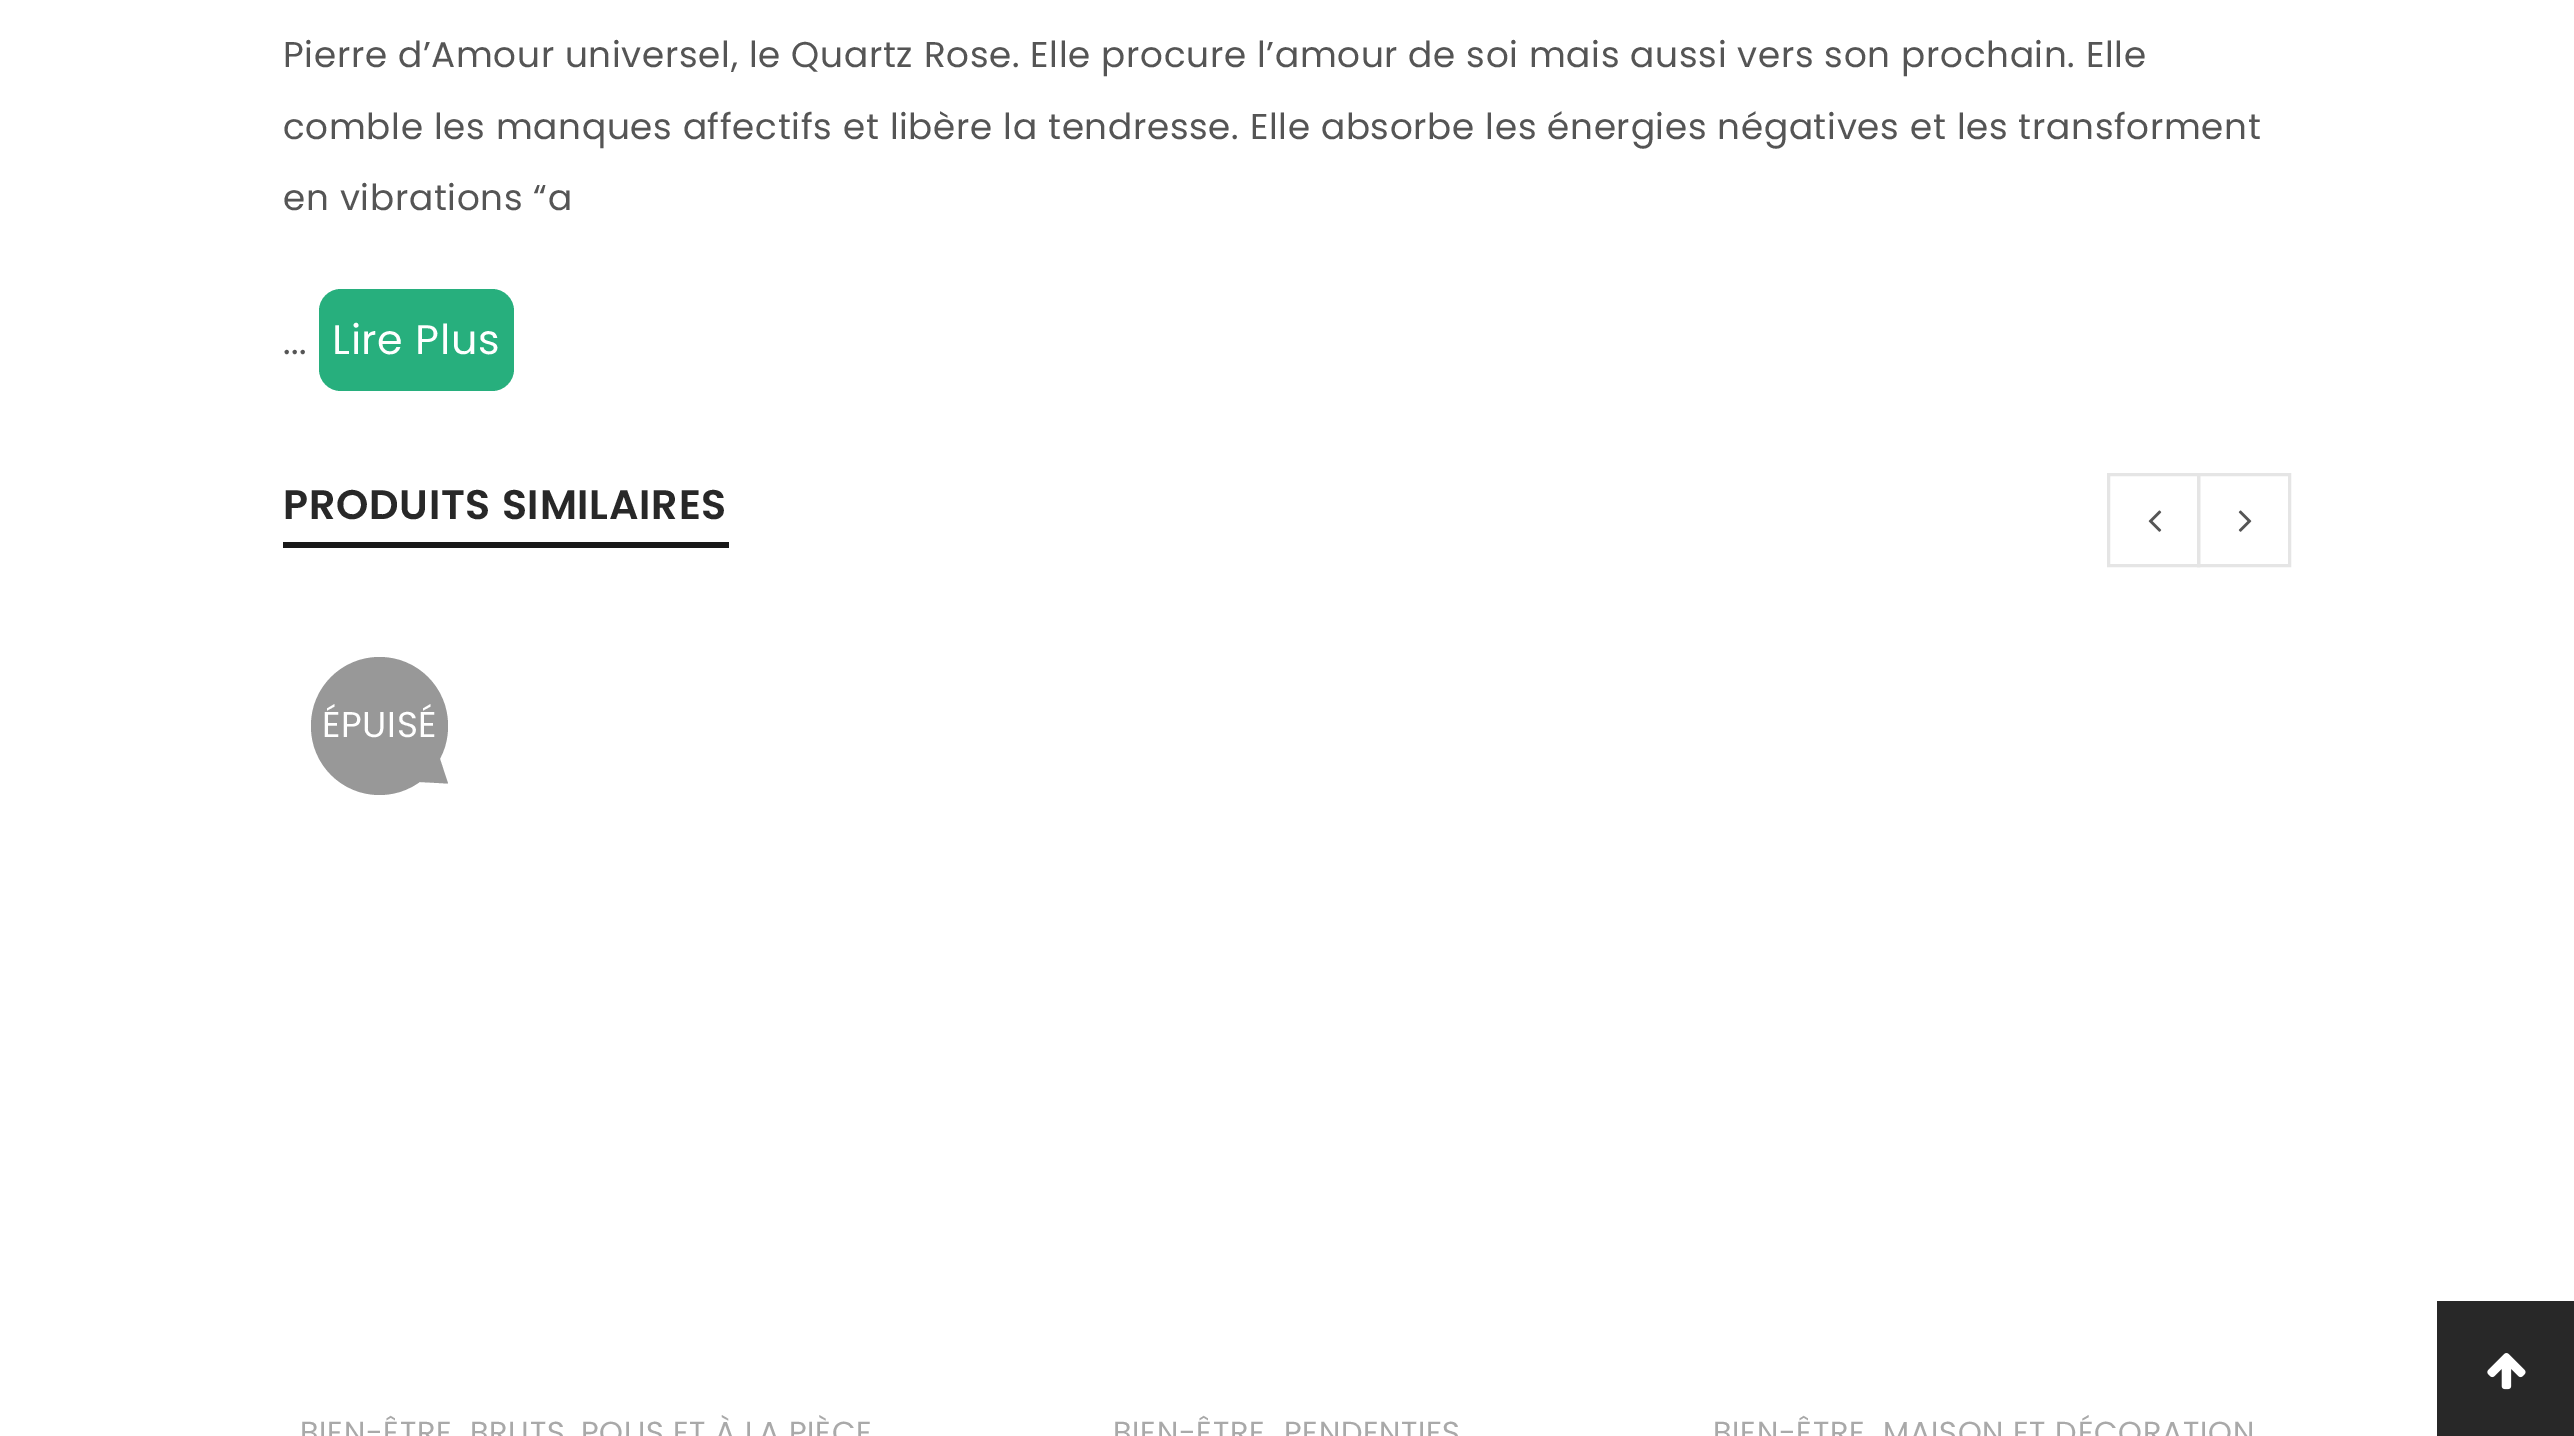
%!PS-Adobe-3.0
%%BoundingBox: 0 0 2574 1436
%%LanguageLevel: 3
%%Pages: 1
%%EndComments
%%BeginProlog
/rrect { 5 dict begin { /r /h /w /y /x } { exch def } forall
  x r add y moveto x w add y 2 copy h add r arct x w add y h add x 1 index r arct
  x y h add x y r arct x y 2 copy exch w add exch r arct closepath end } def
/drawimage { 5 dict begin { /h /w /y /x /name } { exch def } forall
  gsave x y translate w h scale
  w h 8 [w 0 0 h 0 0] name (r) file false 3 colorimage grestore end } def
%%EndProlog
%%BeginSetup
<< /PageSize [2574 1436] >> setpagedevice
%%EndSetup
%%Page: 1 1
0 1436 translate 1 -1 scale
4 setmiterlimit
1 setgray
0 0 2574 1436 rectfill
0.153 0.686 0.49 setrgbcolor
319 289 195 102 22 rrect fill
0.094 setgray
283 542 446 6 rectfill
0.898 setgray
3 setlinewidth
2108.5 474.5 90 91 rectstroke
(images/1.raw) 2148 510 14 22 drawimage
2198.5 474.5 91 91 rectstroke
(images/2.raw) 2238 510 14 22 drawimage
0.596 setgray
311 657 137 138 68.5 rrect fill
newpath 411 781.5 moveto 438.5 754.5 lineto 448 783.5 lineto closepath fill
0.157 setgray
2437 1301 137 135 rectfill
(images/3.raw) 2487 1353 39 37 drawimage
/Poppins-Regular [35.75 0 0 -35.75 0 0] selectfont
0.333 setgray
283 67 moveto 0.69 0 (Pierre d’Amour universel, le Quartz Rose. Elle procure l’amour de soi mais aussi vers son prochain. Elle) ashow
283 139 moveto 0.69 0 (comble les manques affectifs et libère la tendresse. Elle absorbe les énergies négatives et les transforment) ashow
283 210 moveto 0.69 0 (en vibrations “a) ashow
283 354 moveto 0.69 0 (...) ashow
/Poppins-Regular [41.25 0 0 -41.25 0 0] selectfont
1 setgray
332 354 moveto 0.69 0 (Lire Plus) ashow
/Poppins-SemiBold [41.25 0 0 -41.25 0 0] selectfont
0.157 setgray
283 519 moveto 0.69 0 (PRODUITS SIMILAIRES) ashow
/Poppins-Regular [35.75 0 0 -35.75 0 0] selectfont
1 setgray
322 737 moveto 0.69 0 (ÉPUISÉ) ashow
/Poppins-Regular [30.4 0 0 -30.4 0 0] selectfont
0.663 setgray
300 1443 moveto 0.69 0 (BIEN-ÊTRE) ashow
470 1443 moveto 0.69 0 (BRUTS, POLIS ET À LA PIÈCE) ashow
1113 1443 moveto 0.69 0 (BIEN-ÊTRE) ashow
1284 1443 moveto 0.69 0 (PENDENTIFS) ashow
1713 1443 moveto 0.69 0 (BIEN-ÊTRE) ashow
1883 1443 moveto 0.69 0 (MAISON ET DÉCORATION) ashow
showpage
%%EOF
